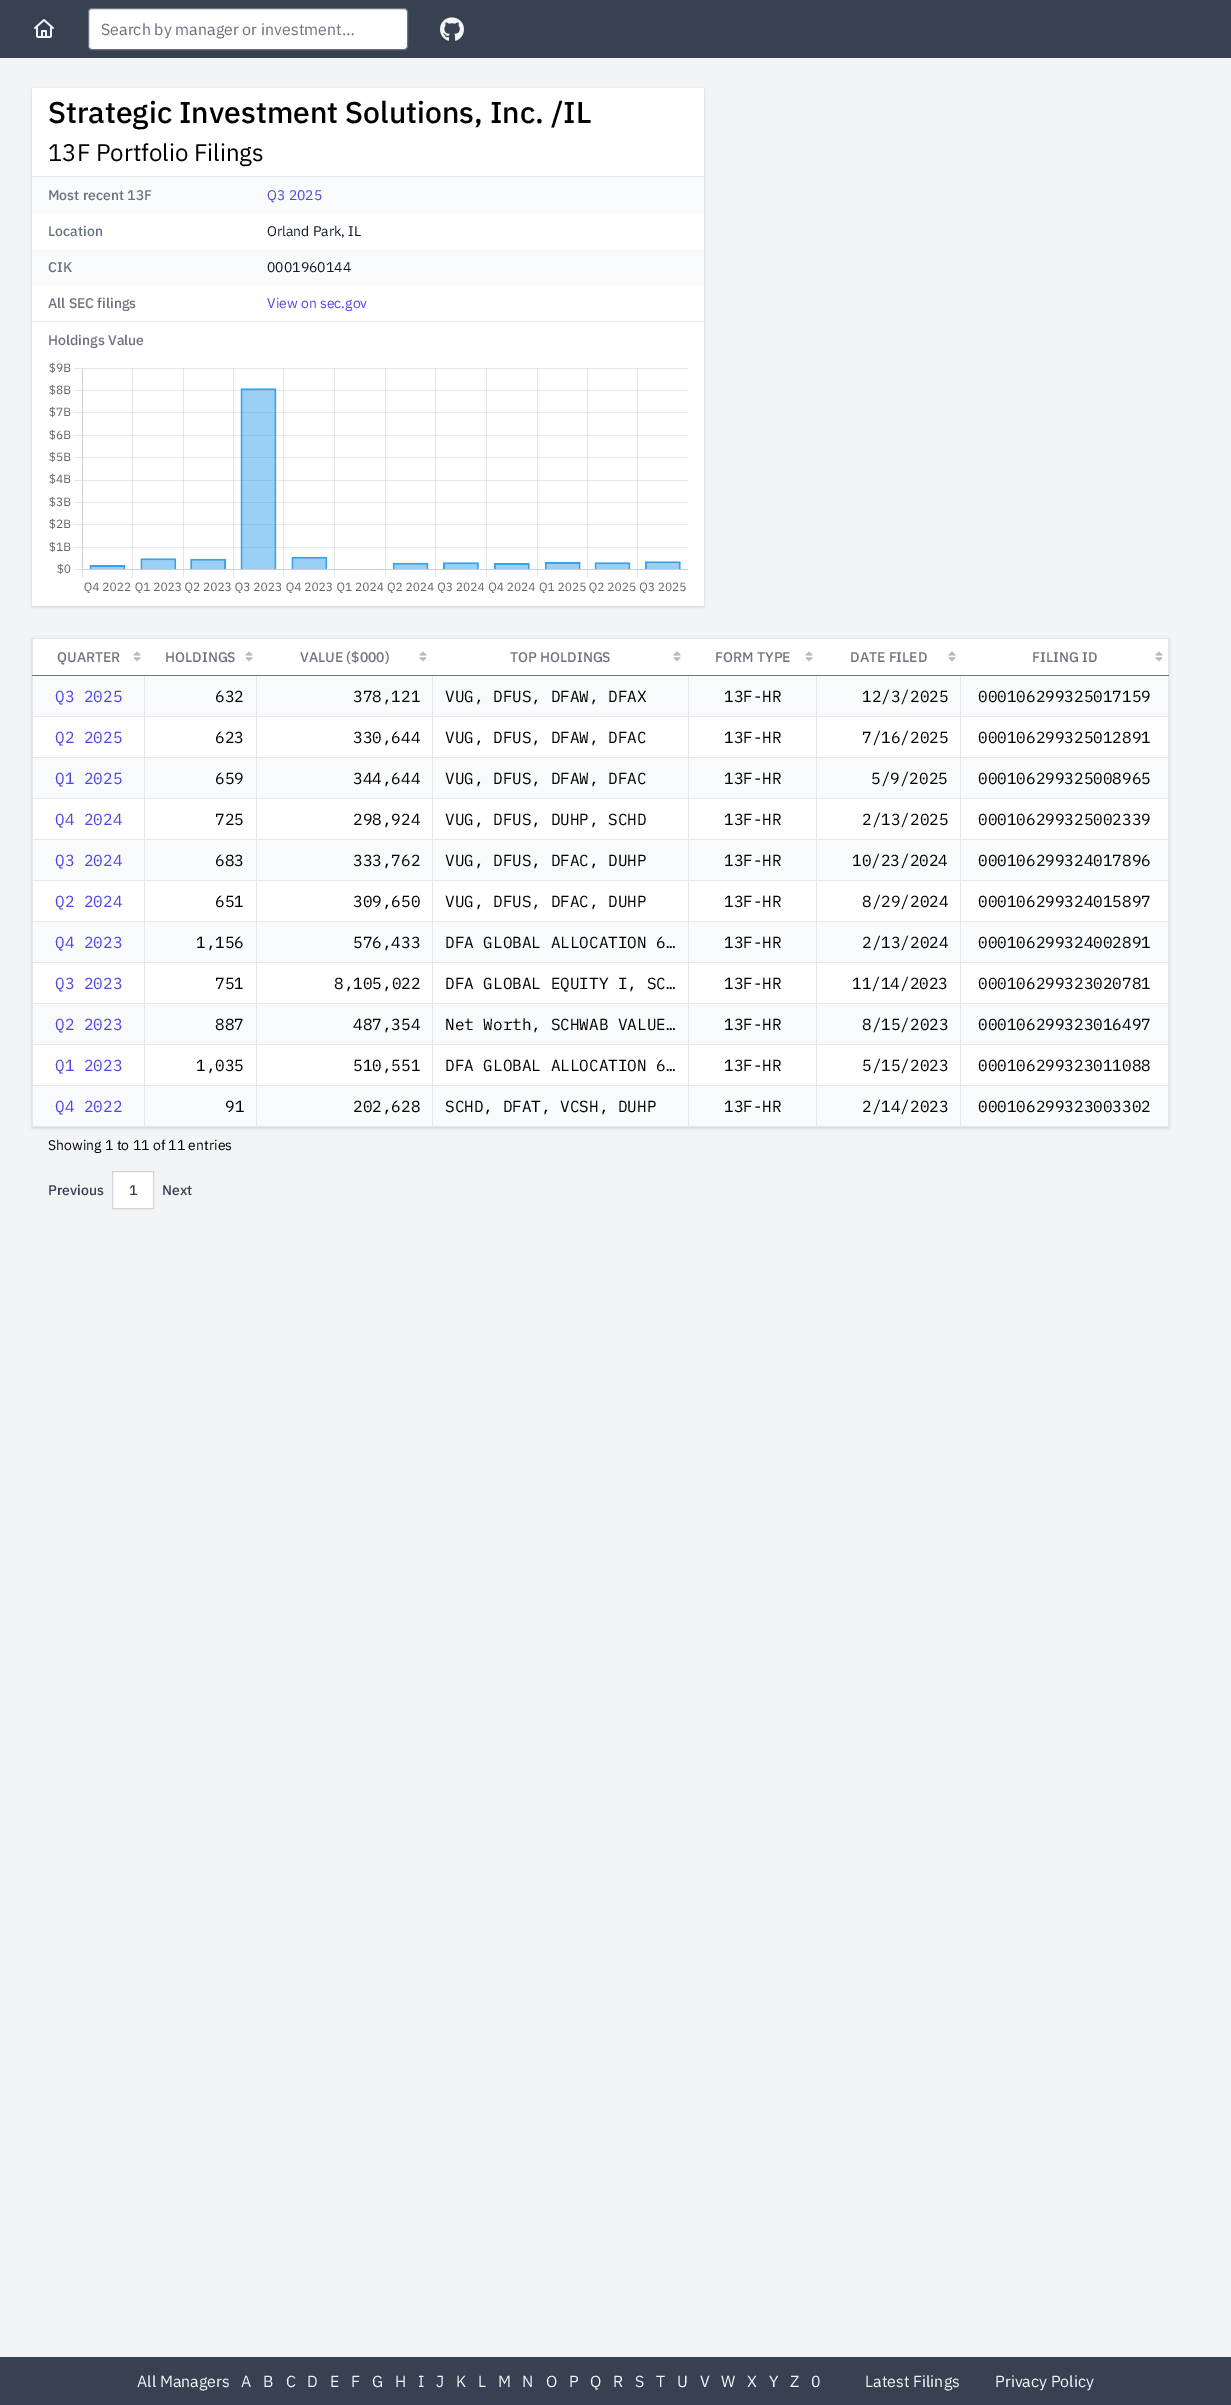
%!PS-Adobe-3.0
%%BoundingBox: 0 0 1231 2405
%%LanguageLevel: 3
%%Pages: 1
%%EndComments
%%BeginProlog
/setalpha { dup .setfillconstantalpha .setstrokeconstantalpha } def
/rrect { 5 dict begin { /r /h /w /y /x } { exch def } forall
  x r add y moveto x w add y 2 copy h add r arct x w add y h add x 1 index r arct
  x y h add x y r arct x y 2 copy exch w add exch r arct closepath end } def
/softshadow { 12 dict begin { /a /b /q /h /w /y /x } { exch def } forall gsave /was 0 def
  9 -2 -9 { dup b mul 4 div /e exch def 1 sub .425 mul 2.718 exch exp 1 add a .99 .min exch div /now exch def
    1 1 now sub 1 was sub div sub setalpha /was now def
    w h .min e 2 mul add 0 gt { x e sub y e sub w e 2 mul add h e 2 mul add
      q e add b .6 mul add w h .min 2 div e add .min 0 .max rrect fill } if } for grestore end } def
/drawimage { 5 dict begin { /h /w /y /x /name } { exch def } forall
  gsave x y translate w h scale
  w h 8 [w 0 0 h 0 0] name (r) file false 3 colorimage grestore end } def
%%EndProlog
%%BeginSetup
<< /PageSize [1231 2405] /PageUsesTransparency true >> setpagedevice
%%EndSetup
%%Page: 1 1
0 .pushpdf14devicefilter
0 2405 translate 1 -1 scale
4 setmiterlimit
0.953 0.957 0.965 setrgbcolor
0 0 1231 2405 rectfill
0.216 0.255 0.318 setrgbcolor
0 0 1231 58 rectfill
(images/1.raw) 34 19 20 19 drawimage
1 setgray
88.5 8.5 319 41 3.5 rrect gsave fill grestore
0.42 0.447 0.502 setrgbcolor
stroke
(images/2.raw) 440 17 24 24 drawimage
0 setgray
32 89 672 518 0 1 0.06 softshadow
32 89 672 518 0 1.5 0.1 softshadow
1 setgray
32 88 672 518 rectfill
0.898 0.906 0.922 setrgbcolor
32 176 672 1 rectfill
0.976 0.98 0.984 setrgbcolor
32 177 672 36 rectfill
32 249 672 36 rectfill
0.898 0.906 0.922 setrgbcolor
32 321 672 1 rectfill
(images/3.raw) 49 362 639 231 drawimage
0 setgray
32 639 1137 489 0 1 0.06 softshadow
32 639 1137 489 0 1.5 0.1 softshadow
0.898 0.906 0.922 setrgbcolor
32 638 1137 1 rectfill
1168 638 1 489 rectfill
32 1126 1137 1 rectfill
32 638 1 489 rectfill
1 setgray
33 639 1135 36 rectfill
(images/4.raw) 133 651 8 11 drawimage
(images/4.raw) 245 651 8 11 drawimage
(images/4.raw) 419 651 8 11 drawimage
(images/4.raw) 673 651 8 11 drawimage
(images/4.raw) 805 651 8 11 drawimage
(images/4.raw) 948 651 8 11 drawimage
(images/4.raw) 1155 651 8 11 drawimage
0.976 0.98 0.984 setrgbcolor
33 676 1135 40 rectfill
0.898 0.906 0.922 setrgbcolor
960 716 209 1 rectfill
1 setgray
33 717 1135 40 rectfill
0.898 0.906 0.922 setrgbcolor
960 757 209 1 rectfill
0.976 0.98 0.984 setrgbcolor
33 758 1135 40 rectfill
0.898 0.906 0.922 setrgbcolor
960 798 209 1 rectfill
1 setgray
33 799 1135 40 rectfill
0.898 0.906 0.922 setrgbcolor
960 839 209 1 rectfill
0.976 0.98 0.984 setrgbcolor
33 840 1135 40 rectfill
0.898 0.906 0.922 setrgbcolor
960 880 209 1 rectfill
1 setgray
33 881 1135 40 rectfill
0.898 0.906 0.922 setrgbcolor
960 921 209 1 rectfill
0.976 0.98 0.984 setrgbcolor
33 922 1135 40 rectfill
0.898 0.906 0.922 setrgbcolor
960 962 209 1 rectfill
1 setgray
33 963 1135 40 rectfill
0.898 0.906 0.922 setrgbcolor
960 1003 209 1 rectfill
0.976 0.98 0.984 setrgbcolor
33 1004 1135 40 rectfill
0.898 0.906 0.922 setrgbcolor
960 1044 209 1 rectfill
1 setgray
33 1045 1135 40 rectfill
0.898 0.906 0.922 setrgbcolor
960 1085 209 1 rectfill
0.976 0.98 0.984 setrgbcolor
33 1086 1135 40 rectfill
0.898 0.906 0.922 setrgbcolor
960 1085 1 42 rectfill
816 1085 145 1 rectfill
960 1044 1 42 rectfill
816 1044 145 1 rectfill
960 1003 1 42 rectfill
816 1003 145 1 rectfill
960 962 1 42 rectfill
816 962 145 1 rectfill
960 921 1 42 rectfill
816 921 145 1 rectfill
960 880 1 42 rectfill
816 880 145 1 rectfill
960 839 1 42 rectfill
816 839 145 1 rectfill
960 798 1 42 rectfill
816 798 145 1 rectfill
960 757 1 42 rectfill
816 757 145 1 rectfill
960 716 1 42 rectfill
816 716 145 1 rectfill
816 1085 1 42 rectfill
688 1085 129 1 rectfill
816 1044 1 42 rectfill
688 1044 129 1 rectfill
816 1003 1 42 rectfill
688 1003 129 1 rectfill
816 962 1 42 rectfill
688 962 129 1 rectfill
816 921 1 42 rectfill
688 921 129 1 rectfill
816 880 1 42 rectfill
688 880 129 1 rectfill
816 839 1 42 rectfill
688 839 129 1 rectfill
816 798 1 42 rectfill
688 798 129 1 rectfill
816 757 1 42 rectfill
688 757 129 1 rectfill
816 716 1 42 rectfill
688 716 129 1 rectfill
688 1085 1 42 rectfill
432 1085 257 1 rectfill
688 1044 1 42 rectfill
432 1044 257 1 rectfill
688 1003 1 42 rectfill
432 1003 257 1 rectfill
688 962 1 42 rectfill
432 962 257 1 rectfill
688 921 1 42 rectfill
432 921 257 1 rectfill
688 880 1 42 rectfill
432 880 257 1 rectfill
688 839 1 42 rectfill
432 839 257 1 rectfill
688 798 1 42 rectfill
432 798 257 1 rectfill
688 757 1 42 rectfill
432 757 257 1 rectfill
688 716 1 42 rectfill
432 716 257 1 rectfill
432 1085 1 42 rectfill
256 1085 177 1 rectfill
432 1044 1 42 rectfill
256 1044 177 1 rectfill
432 1003 1 42 rectfill
256 1003 177 1 rectfill
432 962 1 42 rectfill
256 962 177 1 rectfill
432 921 1 42 rectfill
256 921 177 1 rectfill
432 880 1 42 rectfill
256 880 177 1 rectfill
432 839 1 42 rectfill
256 839 177 1 rectfill
432 798 1 42 rectfill
256 798 177 1 rectfill
432 757 1 42 rectfill
256 757 177 1 rectfill
432 716 1 42 rectfill
256 716 177 1 rectfill
256 1085 1 42 rectfill
144 1085 113 1 rectfill
256 1044 1 42 rectfill
144 1044 113 1 rectfill
256 1003 1 42 rectfill
144 1003 113 1 rectfill
256 962 1 42 rectfill
144 962 113 1 rectfill
256 921 1 42 rectfill
144 921 113 1 rectfill
256 880 1 42 rectfill
144 880 113 1 rectfill
256 839 1 42 rectfill
144 839 113 1 rectfill
256 798 1 42 rectfill
144 798 113 1 rectfill
256 757 1 42 rectfill
144 757 113 1 rectfill
256 716 1 42 rectfill
144 716 113 1 rectfill
144 1085 1 42 rectfill
32 1085 113 1 rectfill
144 1044 1 42 rectfill
32 1044 113 1 rectfill
144 1003 1 42 rectfill
32 1003 113 1 rectfill
144 962 1 42 rectfill
32 962 113 1 rectfill
144 921 1 42 rectfill
32 921 113 1 rectfill
144 880 1 42 rectfill
32 880 113 1 rectfill
144 839 1 42 rectfill
32 839 113 1 rectfill
144 798 1 42 rectfill
32 798 113 1 rectfill
144 757 1 42 rectfill
32 757 113 1 rectfill
144 716 1 42 rectfill
32 716 113 1 rectfill
144 675 1 42 rectfill
256 675 1 42 rectfill
432 675 1 42 rectfill
688 675 1 42 rectfill
816 675 1 42 rectfill
960 675 1 42 rectfill
0.42 0.447 0.502 setrgbcolor
32 675 1137 1 rectfill
1 setgray
newpath 112.5 1171.5 moveto 153.5 1171.5 lineto 153.5 1208.5 lineto 112.5 1208.5 lineto closepath gsave fill grestore
0.82 0.835 0.859 setrgbcolor
stroke
0.216 0.255 0.318 setrgbcolor
0 2357 1231 48 rectfill
/IBMPlexSans-Regular [16 0 0 -16 0 0] selectfont
0.42 0.447 0.502 setrgbcolor
101 35 moveto (Search by manager or investment…) show
/IBMPlexSans-Medium [30 0 0 -30 0 0] selectfont
0 setgray
48 123 moveto (Strategic Investment Solutions, Inc. /IL) show
/IBMPlexSans-Regular [24 0 0 -24 0 0] selectfont
48 161 moveto (13F Portfolio Filings) show
/IBMPlexSans-Medium [14 0 0 -14 0 0] selectfont
0.42 0.447 0.502 setrgbcolor
48 200 moveto (Most recent 13F) show
/IBMPlexSans-Regular [14 0 0 -14 0 0] selectfont
0.31 0.275 0.898 setrgbcolor
267 200 moveto (Q3 2025) show
/IBMPlexSans-Medium [14 0 0 -14 0 0] selectfont
0.42 0.447 0.502 setrgbcolor
48 236 moveto (Location) show
/IBMPlexSans-Regular [14 0 0 -14 0 0] selectfont
0.067 0.094 0.153 setrgbcolor
267 236 moveto (Orland Park, IL) show
/IBMPlexSans-Medium [14 0 0 -14 0 0] selectfont
0.42 0.447 0.502 setrgbcolor
48 272 moveto (CIK) show
/IBMPlexSans-Regular [14 0 0 -14 0 0] selectfont
0.067 0.094 0.153 setrgbcolor
267 272 moveto (0001960144) show
/IBMPlexSans-Medium [14 0 0 -14 0 0] selectfont
0.42 0.447 0.502 setrgbcolor
48 308 moveto (All SEC filings) show
/IBMPlexSans-Regular [14 0 0 -14 0 0] selectfont
0.31 0.275 0.898 setrgbcolor
267 308 moveto (View on sec.gov) show
/IBMPlexSans-Medium [14 0 0 -14 0 0] selectfont
0.42 0.447 0.502 setrgbcolor
48 345 moveto (Holdings Value) show
57 662 moveto (QUARTER) show
165 662 moveto (HOLDINGS) show
300 662 moveto (VALUE \($000\)) show
510 662 moveto (TOP HOLDINGS) show
715 662 moveto (FORM TYPE) show
850 662 moveto (DATE FILED) show
1032 662 moveto (FILING ID) show
/IBMPlexMono-Regular [16 0 0 -16 0 0] selectfont
0.31 0.275 0.898 setrgbcolor
55 702 moveto (Q3 2025) show
0 setgray
215 702 moveto (632) show
353 702 moveto (378,121) show
445 702 moveto (VUG, DFUS, DFAW, DFAX) show
724 702 moveto (13F-HR) show
862 702 moveto (12/3/2025) show
978 702 moveto (000106299325017159) show
0.31 0.275 0.898 setrgbcolor
55 743 moveto (Q2 2025) show
0 setgray
215 743 moveto (623) show
353 743 moveto (330,644) show
445 743 moveto (VUG, DFUS, DFAW, DFAC) show
724 743 moveto (13F-HR) show
862 743 moveto (7/16/2025) show
978 743 moveto (000106299325012891) show
0.31 0.275 0.898 setrgbcolor
55 784 moveto (Q1 2025) show
0 setgray
215 784 moveto (659) show
353 784 moveto (344,644) show
445 784 moveto (VUG, DFUS, DFAW, DFAC) show
724 784 moveto (13F-HR) show
871 784 moveto (5/9/2025) show
978 784 moveto (000106299325008965) show
0.31 0.275 0.898 setrgbcolor
55 825 moveto (Q4 2024) show
0 setgray
215 825 moveto (725) show
353 825 moveto (298,924) show
445 825 moveto (VUG, DFUS, DUHP, SCHD) show
724 825 moveto (13F-HR) show
862 825 moveto (2/13/2025) show
978 825 moveto (000106299325002339) show
0.31 0.275 0.898 setrgbcolor
55 866 moveto (Q3 2024) show
0 setgray
215 866 moveto (683) show
353 866 moveto (333,762) show
445 866 moveto (VUG, DFUS, DFAC, DUHP) show
724 866 moveto (13F-HR) show
852 866 moveto (10/23/2024) show
978 866 moveto (000106299324017896) show
0.31 0.275 0.898 setrgbcolor
55 907 moveto (Q2 2024) show
0 setgray
215 907 moveto (651) show
353 907 moveto (309,650) show
445 907 moveto (VUG, DFUS, DFAC, DUHP) show
724 907 moveto (13F-HR) show
862 907 moveto (8/29/2024) show
978 907 moveto (000106299324015897) show
0.31 0.275 0.898 setrgbcolor
55 948 moveto (Q4 2023) show
0 setgray
196 948 moveto (1,156) show
353 948 moveto (576,433) show
445 948 moveto (DFA GLOBAL ALLOCATION 6…) show
724 948 moveto (13F-HR) show
862 948 moveto (2/13/2024) show
978 948 moveto (000106299324002891) show
0.31 0.275 0.898 setrgbcolor
55 989 moveto (Q3 2023) show
0 setgray
215 989 moveto (751) show
334 989 moveto (8,105,022) show
445 989 moveto (DFA GLOBAL EQUITY I, SC…) show
724 989 moveto (13F-HR) show
852 989 moveto (11/14/2023) show
978 989 moveto (000106299323020781) show
0.31 0.275 0.898 setrgbcolor
55 1030 moveto (Q2 2023) show
0 setgray
215 1030 moveto (887) show
353 1030 moveto (487,354) show
445 1030 moveto (Net Worth, SCHWAB VALUE…) show
724 1030 moveto (13F-HR) show
862 1030 moveto (8/15/2023) show
978 1030 moveto (000106299323016497) show
0.31 0.275 0.898 setrgbcolor
55 1071 moveto (Q1 2023) show
0 setgray
196 1071 moveto (1,035) show
353 1071 moveto (510,551) show
445 1071 moveto (DFA GLOBAL ALLOCATION 6…) show
724 1071 moveto (13F-HR) show
862 1071 moveto (5/15/2023) show
978 1071 moveto (000106299323011088) show
0.31 0.275 0.898 setrgbcolor
55 1112 moveto (Q4 2022) show
0 setgray
225 1112 moveto (91) show
353 1112 moveto (202,628) show
445 1112 moveto (SCHD, DFAT, VCSH, DUHP) show
724 1112 moveto (13F-HR) show
862 1112 moveto (2/14/2023) show
978 1112 moveto (000106299323003302) show
/IBMPlexSans-Regular [14 0 0 -14 0 0] selectfont
48 1150 moveto (Showing 1 to 11 of 11 entries) show
/IBMPlexSans-Medium [14 0 0 -14 0 0] selectfont
0.216 0.255 0.318 setrgbcolor
48 1195 moveto (Previous) show
129 1195 moveto (1) show
162 1195 moveto (Next) show
/IBMPlexSans-Regular [16 0 0 -16 0 0] selectfont
0.953 0.957 0.965 setrgbcolor
137 2387 moveto (All Managers) show
241 2387 moveto (A) show
263 2387 moveto (B) show
286 2387 moveto (C) show
307 2387 moveto (D) show
330 2387 moveto (E) show
351 2387 moveto (F) show
372 2387 moveto (G) show
395 2387 moveto (H) show
418 2387 moveto (I) show
436 2387 moveto (J) show
456 2387 moveto (K) show
478 2387 moveto (L) show
498 2387 moveto (M) show
522 2387 moveto (N) show
546 2387 moveto (O) show
569 2387 moveto (P) show
590 2387 moveto (Q) show
613 2387 moveto (R) show
635 2387 moveto (S) show
656 2387 moveto (T) show
677 2387 moveto (U) show
700 2387 moveto (V) show
721 2387 moveto (W) show
747 2387 moveto (X) show
769 2387 moveto (Y) show
790 2387 moveto (Z) show
811 2387 moveto (0) show
865 2387 moveto (Latest Filings) show
995 2387 moveto (Privacy Policy) show
.poppdf14devicefilter showpage
%%EOF
